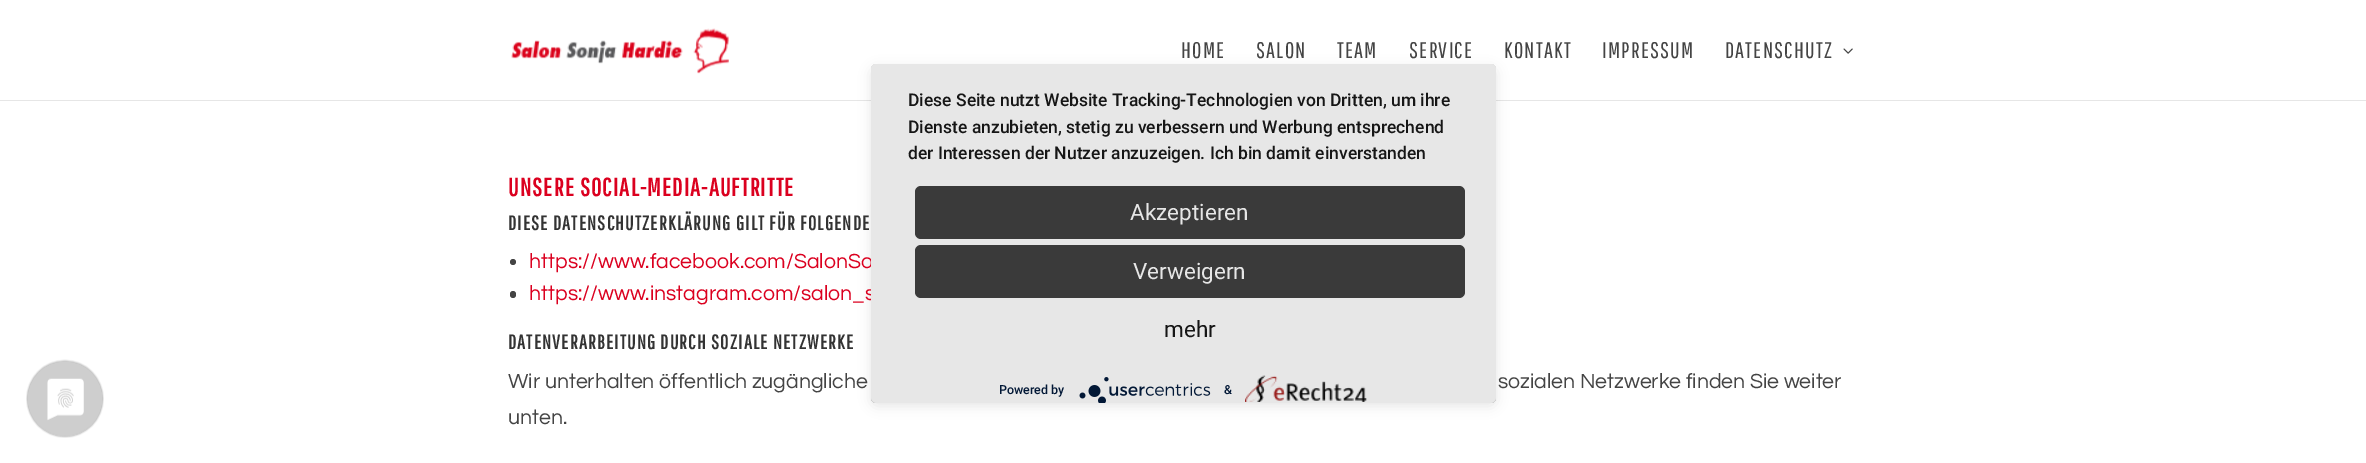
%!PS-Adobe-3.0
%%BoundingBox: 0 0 2366 463
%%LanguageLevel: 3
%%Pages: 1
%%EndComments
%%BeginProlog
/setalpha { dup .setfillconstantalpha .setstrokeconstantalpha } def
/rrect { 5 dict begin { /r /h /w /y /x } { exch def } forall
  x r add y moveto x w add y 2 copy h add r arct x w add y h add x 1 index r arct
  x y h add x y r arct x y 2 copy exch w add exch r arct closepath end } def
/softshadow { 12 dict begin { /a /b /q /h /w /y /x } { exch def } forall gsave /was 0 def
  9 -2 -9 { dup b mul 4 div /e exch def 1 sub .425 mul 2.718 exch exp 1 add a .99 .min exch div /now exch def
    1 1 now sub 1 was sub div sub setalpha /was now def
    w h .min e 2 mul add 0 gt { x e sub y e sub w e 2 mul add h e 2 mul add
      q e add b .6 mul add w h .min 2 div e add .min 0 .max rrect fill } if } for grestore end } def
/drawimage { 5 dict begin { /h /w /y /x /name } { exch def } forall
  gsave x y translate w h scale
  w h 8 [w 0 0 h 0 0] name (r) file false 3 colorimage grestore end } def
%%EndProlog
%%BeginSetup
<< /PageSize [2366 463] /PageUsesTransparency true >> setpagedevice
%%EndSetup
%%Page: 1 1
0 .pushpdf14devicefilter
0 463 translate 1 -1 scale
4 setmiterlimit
1 setgray
0 0 2366 463 rectfill
0.902 setgray
0 100 2366 1 rectfill
(images/1.raw) 511 28 218 46 drawimage
(images/2.raw) 1843 48 10 6 drawimage
0.267 setgray
newpath 513 262 3 0 360 arc closepath fill
510 291 6 7 3 rrect fill
(images/3.raw) 26 359 78 79 drawimage
0 setgray
871 68 625 338 6 6 0.1 softshadow
gsave
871 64 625 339 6 rrect clip newpath
871 71 625 370 0 22.5 0.3 softshadow
grestore
/PathwayGothicOne-Regular [22.5 0 0 -22.5 0 0] selectfont
0.267 setgray
1181 58 moveto 1.25 0 (HOME) ashow
1256 58 moveto 1.25 0 (SALON) ashow
1337 58 moveto 1.25 0 (TEAM) ashow
1409 58 moveto 1.25 0 (SERVICE) ashow
1504 58 moveto 1.25 0 (KONTAKT) ashow
1602 58 moveto 1.25 0 (IMPRESSUM) ashow
1725 58 moveto 1.25 0 (DATENSCHUTZ) ashow
/PathwayGothicOne-Bold [25 0 0 -25 0 0] selectfont
0.859 0 0.122 setrgbcolor
508 196 moveto 1.25 0 (UNSERE SOCIAL-MEDIA-AUFTRITTE) ashow
/PathwayGothicOne-Bold [20 0 0 -20 0 0] selectfont
0.2 setgray
508 230 moveto 1.25 0 (DIESE DATENSCHUTZERKLÄRUNG GILT FÜR FOLGENDE) ashow
/Questrial-Regular [21.25 0 0 -21.25 0 0] selectfont
0.859 0 0.122 setrgbcolor
529 268 moveto (https://www.facebook.com/SalonSo) show
529 300 moveto (https://www.instagram.com/salon_s) show
/PathwayGothicOne-Bold [20 0 0 -20 0 0] selectfont
0.2 setgray
508 349 moveto 1.25 0 (DATENVERARBEITUNG DURCH SOZIALE NETZWERKE) ashow
/Questrial-Regular [21.25 0 0 -21.25 0 0] selectfont
0.267 setgray
508 388 moveto (Wir unterhalten öffentlich zugängliche) show
1498 388 moveto (sozialen Netzwerke finden Sie weiter) show
508 424 moveto (unten.) show
0.906 setgray
871 64 625 339 6 rrect fill
/Roboto-Medium [17.5 0 0 -17.5 0 0] selectfont
0.086 setgray
908 106 moveto (Diese Seite nutzt Website Tracking-Technologien von Dritten, um ihre) show
908 133 moveto (Dienste anzubieten, stetig zu verbessern und Werbung entsprechend) show
908 159 moveto (der Interessen der Nutzer anzuzeigen. Ich bin damit einverstanden) show
0.227 setgray
915 186 550 53 6 rrect fill
/Roboto-Regular [22.5 0 0 -22.5 0 0] selectfont
0.902 setgray
1130 220 moveto (Akzeptieren) show
0.227 setgray
915 245 550 53 6 rrect fill
0.902 setgray
1133 279 moveto (Verweigern) show
0.086 setgray
1164 337 moveto (mehr) show
/Roboto-Medium [12.5 0 0 -12.5 0 0] selectfont
0.008 0.094 0.212 setrgbcolor
999 394 moveto (Powered by) show
(images/4.raw) 1079 377 132 26 drawimage
1224 394 moveto (&) show
(images/5.raw) 1245 375 122 27 drawimage
.poppdf14devicefilter showpage
%%EOF
